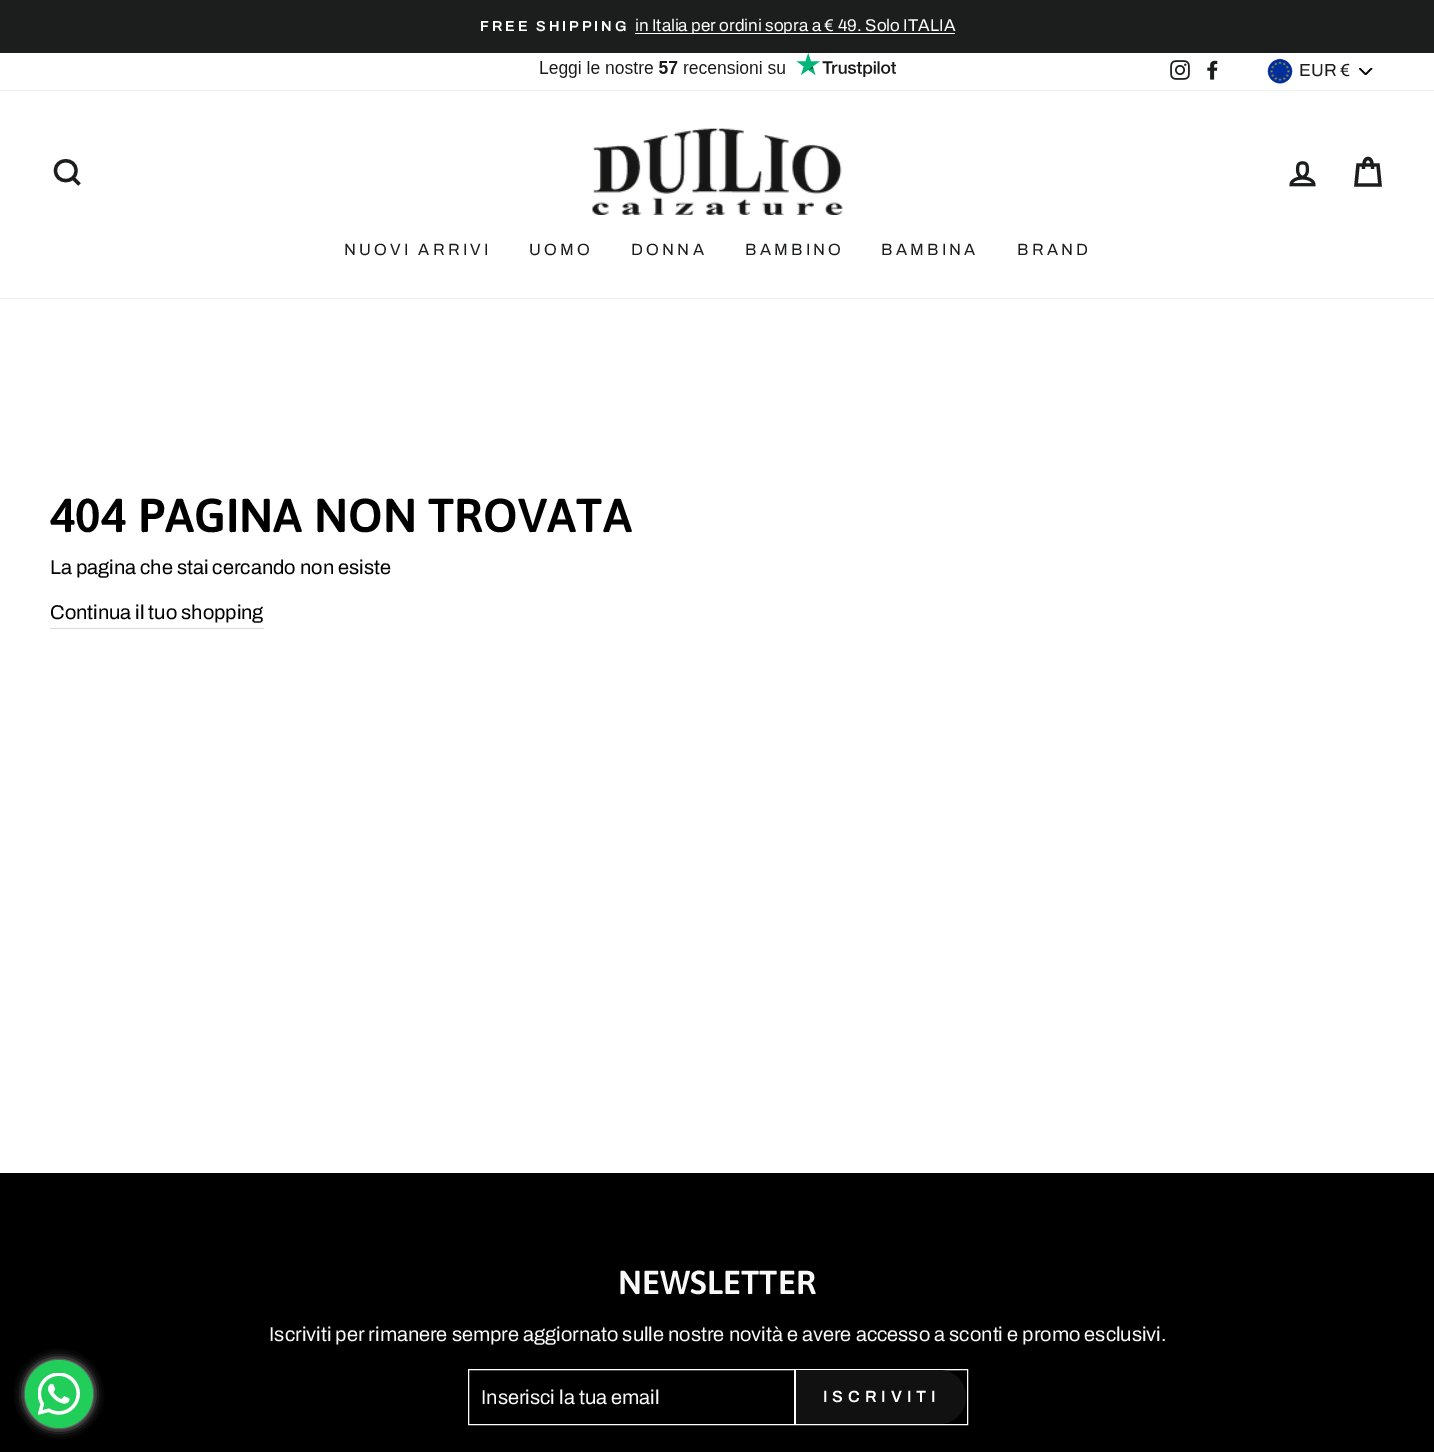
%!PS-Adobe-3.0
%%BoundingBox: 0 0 1434 1452
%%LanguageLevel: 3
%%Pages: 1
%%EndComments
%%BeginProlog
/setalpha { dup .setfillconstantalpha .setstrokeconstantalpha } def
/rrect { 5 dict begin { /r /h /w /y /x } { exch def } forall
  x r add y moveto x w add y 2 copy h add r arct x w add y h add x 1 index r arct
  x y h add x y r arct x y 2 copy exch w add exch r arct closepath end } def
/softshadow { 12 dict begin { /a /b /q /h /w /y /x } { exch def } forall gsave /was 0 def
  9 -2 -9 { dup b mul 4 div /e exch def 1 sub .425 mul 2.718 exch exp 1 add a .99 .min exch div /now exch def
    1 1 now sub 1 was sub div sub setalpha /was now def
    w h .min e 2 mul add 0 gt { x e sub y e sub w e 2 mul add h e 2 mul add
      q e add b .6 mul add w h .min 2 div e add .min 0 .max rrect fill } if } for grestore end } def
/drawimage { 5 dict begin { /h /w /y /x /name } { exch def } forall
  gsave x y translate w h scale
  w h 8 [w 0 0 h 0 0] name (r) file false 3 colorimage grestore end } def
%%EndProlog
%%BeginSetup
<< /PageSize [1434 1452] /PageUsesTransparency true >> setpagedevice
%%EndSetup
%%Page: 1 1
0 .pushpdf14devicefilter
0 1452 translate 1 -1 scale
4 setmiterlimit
1 setgray
0 0 1434 1452 rectfill
0.11 0.114 0.114 setrgbcolor
0 0 1434 53 rectfill
1 setgray
635 33 320 1 rectfill
(images/1.raw) 540 53 357 25 drawimage
(images/2.raw) 1170 60 20 20 drawimage
(images/3.raw) 1207 60 11 20 drawimage
(images/4.raw) 1359 68 14 7 drawimage
(images/5.raw) 1267 58 26 26 drawimage
0 setgray
0 91 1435 207 0 0.5 0.2 softshadow
1 setgray
0 91 1434 207 rectfill
0.11 0.114 0.114 setrgbcolor
3.3 setlinewidth
newpath 76 170.5 moveto 76 184 55.5 184 55.5 170.5 curveto 55.5 157.5 76 157.5 76 170.5 curveto closepath 79.5 184.5 moveto 73 178 lineto stroke
(images/6.raw) 592 128 251 87 drawimage
(images/7.raw) 1289 161 27 26 drawimage
newpath 1363.5 169 moveto 1363.5 160.5 1365.5 158.5 1368 158.5 curveto 1370.5 158.5 1372.5 160.5 1372.5 169 curveto 1358 165 moveto 1378 165 lineto 1380 185 lineto 1356 185 lineto closepath stroke
0.851 setgray
50 628 214 1 rectfill
0 setgray
0 1173 1434 279 rectfill
1 setgray
1 setlinewidth
468.5 1369.5 326 55 rectstroke
795.5 1369.5 172 55 rectstroke
0.067 setgray
newpath 796 1370 moveto 939 1370 lineto 954 1370 966 1382 966 1397 curveto 966 1412 954 1424 939 1424 curveto 796 1424 lineto closepath fill
0.761 setgray
25 1360 68 68 34 5 1 softshadow
0.133 0.808 0.353 setrgbcolor
newpath 59 1394 34 0 360 arc closepath fill
(images/8.raw) 38 1373 42 42 drawimage
/Archivo-SemiBold [14.5 0 0 -14.5 0 0] selectfont
1 setgray
480 31 moveto 2.9 0 (FREE SHIPPING) ashow
/Archivo-Regular [17 0 0 -17 0 0] selectfont
635 31 moveto (in Italia per ordini sopra a € 49. Solo ITALIA) show
/Archivo-Regular [17.5 0 0 -17.5 0 0] selectfont
0.11 0.114 0.114 setrgbcolor
1299 76 moveto (EUR €) show
/Archivo-Regular [16.25 0 0 -16.25 0 0] selectfont
344 255 moveto 3.25 0 (NUOVI ARRIVI) ashow
529 255 moveto 3.25 0 (UOMO) ashow
631 255 moveto 3.25 0 (DONNA) ashow
745 255 moveto 3.25 0 (BAMBINO) ashow
881 255 moveto 3.25 0 (BAMBINA) ashow
1017 255 moveto 3.25 0 (BRAND) ashow
/Asap-SemiBold [47.5 0 0 -47.5 0 0] selectfont
0 setgray
50 532 moveto (404 PAGINA NON TROVATA) show
/Archivo-Regular [20 0 0 -20 0 0] selectfont
50 574 moveto (La pagina che stai cercando non esiste) show
50 619 moveto (Continua il tuo shopping) show
/Asap-SemiBold [33.25 0 0 -33.25 0 0] selectfont
0.976 setgray
618 1294 moveto (NEWSLETTER) show
/Archivo-Regular [20 0 0 -20 0 0] selectfont
269 1341 moveto (Iscriviti per rimanere sempre aggiornato sulle nostre novità e avere accesso a sconti e promo esclusivi.) show
481 1404 moveto (Inserisci la tua email) show
/Archivo-SemiBold [16.25 0 0 -16.25 0 0] selectfont
1 setgray
823 1402 moveto 4.9 0 (ISCRIVITI) ashow
.poppdf14devicefilter showpage
%%EOF
